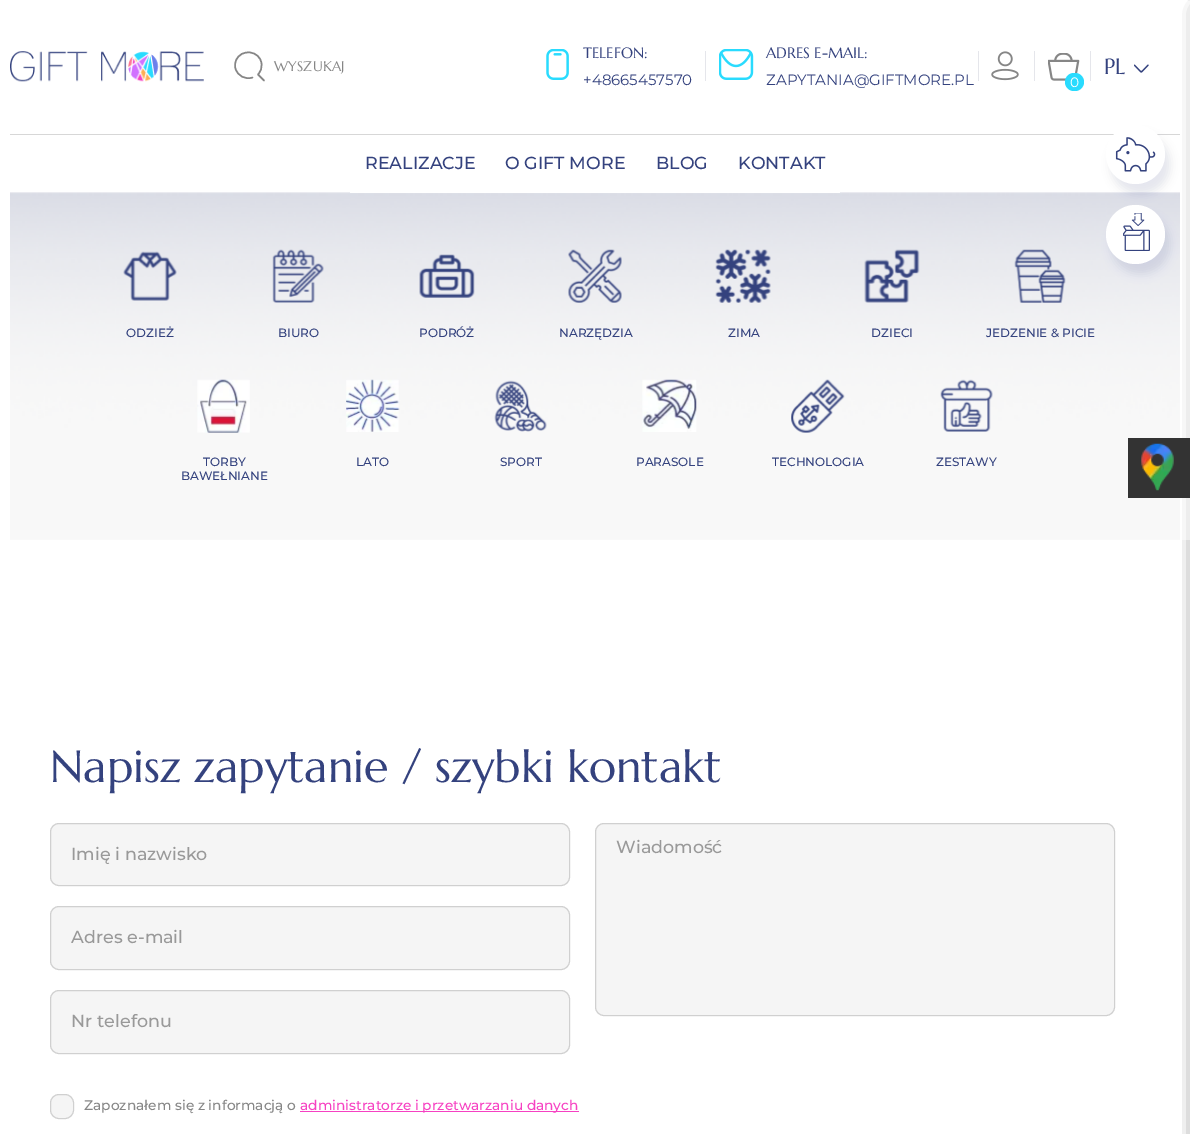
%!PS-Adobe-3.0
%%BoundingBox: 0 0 1190 1134
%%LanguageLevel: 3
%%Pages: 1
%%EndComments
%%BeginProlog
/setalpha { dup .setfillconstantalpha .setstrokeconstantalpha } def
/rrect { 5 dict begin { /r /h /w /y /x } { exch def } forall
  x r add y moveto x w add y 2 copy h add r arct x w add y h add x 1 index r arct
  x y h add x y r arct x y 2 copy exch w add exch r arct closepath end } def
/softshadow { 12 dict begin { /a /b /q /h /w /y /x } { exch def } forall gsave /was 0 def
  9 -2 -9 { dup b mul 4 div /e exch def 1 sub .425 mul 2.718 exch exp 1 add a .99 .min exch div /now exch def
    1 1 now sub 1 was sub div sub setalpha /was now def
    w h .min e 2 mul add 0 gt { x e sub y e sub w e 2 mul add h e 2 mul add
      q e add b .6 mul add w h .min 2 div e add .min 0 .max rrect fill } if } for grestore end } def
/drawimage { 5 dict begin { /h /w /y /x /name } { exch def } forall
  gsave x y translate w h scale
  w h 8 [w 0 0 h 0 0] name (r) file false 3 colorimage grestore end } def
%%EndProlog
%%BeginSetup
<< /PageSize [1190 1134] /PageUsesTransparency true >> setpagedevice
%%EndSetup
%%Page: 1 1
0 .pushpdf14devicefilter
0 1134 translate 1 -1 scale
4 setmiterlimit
1 setgray
0 0 1190 1134 rectfill
0 setgray
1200 11 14 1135 0 8 1 softshadow
1 setgray
1181 1 9 539 rectfill
(images/1.raw) 10 51 194 31 drawimage
0.525 setgray
1.5 setlinewidth
1 setlinecap
1 setlinejoin
newpath 264 80.5 moveto 258 74.5 lineto 261 71.5 262 67.5 261.5 63.5 curveto 260 50.5 241 48 236 60.5 curveto 235 63 234.5 66 235.5 68.5 curveto 237.5 76 245.5 80 252.5 77.5 curveto stroke
(images/2.raw) 546 49 23 31 drawimage
0.898 0.902 0.922 setrgbcolor
705 51 1 30 rectfill
(images/3.raw) 719 49 35 31 drawimage
978 51 1 30 rectfill
(images/4.raw) 991 51 28 30 drawimage
1034 51 1 30 rectfill
1090 51 1 30 rectfill
(images/5.raw) 1134 64 15 9 drawimage
(images/6.raw) 1048 53 32 28 drawimage
0.161 0.859 0.996 setrgbcolor
1065 73 19 18 9 rrect fill
0.843 setgray
10 134 1170 1 rectfill
(images/7.raw) 10 192 1170 348 drawimage
1 setgray
350 192 490 1 rectfill
(images/8.raw) 123 251 54 50 drawimage
(images/9.raw) 272 249 52 54 drawimage
(images/10.raw) 419 254 56 44 drawimage
(images/11.raw) 568 249 54 54 drawimage
(images/12.raw) 715 249 56 54 drawimage
(images/13.raw) 864 249 56 54 drawimage
(images/14.raw) 1014 249 52 54 drawimage
(images/15.raw) 197 379 53 54 drawimage
(images/16.raw) 346 379 54 53 drawimage
(images/17.raw) 494 380 53 52 drawimage
(images/18.raw) 642 379 55 53 drawimage
(images/19.raw) 791 379 54 54 drawimage
(images/20.raw) 940 379 53 53 drawimage
0 setgray
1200 11 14 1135 0 8 1 softshadow
0.2 setgray
1128 438 62 60 rectfill
(images/21.raw) 1141 443 33 48 drawimage
0.961 setgray
50 823 520 63 9 rrect fill
0.33 setalpha
0.525 setgray
1 setlinewidth
0 setlinecap
0 setlinejoin
50.5 823.5 519 62 8.5 rrect stroke
1 setalpha
0.961 setgray
50 906 520 64 9 rrect fill
0.33 setalpha
0.525 setgray
50.5 906.5 519 63 8.5 rrect stroke
1 setalpha
0.961 setgray
50 990 520 64 9 rrect fill
0.33 setalpha
0.525 setgray
50.5 990.5 519 63 8.5 rrect stroke
1 setalpha
0.961 setgray
595 823 520 193 9 rrect fill
0.33 setalpha
0.525 setgray
595.5 823.5 519 192 8.5 rrect stroke
1 setalpha
0.961 setgray
50 1094 24 25 9 rrect fill
0.33 setalpha
0.525 setgray
50.5 1094.5 23 24 8.5 rrect stroke
1 setalpha
0.965 0.255 0.761 setrgbcolor
300 1111 279 1 rectfill
0.169 0.227 0.475 setrgbcolor
1111 135 59 59 29.5 4.5 0.12 softshadow
1 setgray
newpath 1135.5 154.5 29.5 0 360 arc closepath fill
(images/22.raw) 1115 137 41 35 drawimage
0.169 0.227 0.475 setrgbcolor
1111 215 59 59 29.5 4.5 0.12 softshadow
1 setgray
newpath 1135.5 234.5 29.5 0 360 arc closepath fill
(images/23.raw) 1123 213 27 38 drawimage
/Marcellus-Regular [13.75 0 0 -13.75 0 0] selectfont
0.525 setgray
274 71 moveto 0.25 0 (WYSZUKAJ) ashow
/Marcellus-Regular [15 0 0 -15 0 0] selectfont
0.204 0.259 0.494 setrgbcolor
583 58 moveto (TELEFON:) show
/Montserrat-Regular [15 0 0 -15 0 0] selectfont
583 85 moveto (+48665457570) show
/Marcellus-Regular [15 0 0 -15 0 0] selectfont
766 58 moveto (ADRES E-MAIL:) show
/Montserrat-Regular [15 0 0 -15 0 0] selectfont
766 85 moveto (ZAPYTANIA@GIFTMORE.PL) show
/Marcellus-Regular [22 0 0 -22 0 0] selectfont
1104 74 moveto (PL) show
/Montserrat-Regular [13.75 0 0 -13.75 0 0] selectfont
1 setgray
1070 87 moveto (0) show
/Montserrat-Medium [17.5 0 0 -17.5 0 0] selectfont
0.204 0.259 0.494 setrgbcolor
365 169 moveto (REALIZACJE) show
505 169 moveto (O GIFT MORE) show
656 169 moveto (BLOG) show
738 169 moveto (KONTAKT) show
/Montserrat-Medium [12 0 0 -12 0 0] selectfont
126 337 moveto (ODZIEŻ) show
278 337 moveto (BIURO) show
419 337 moveto (PODRÓŻ) show
559 337 moveto (NARZĘDZIA) show
728 337 moveto (ZIMA) show
871 337 moveto (DZIECI) show
986 337 moveto (JEDZENIE & PICIE) show
203 466 moveto (TORBY) show
181 480 moveto (BAWEŁNIANE) show
356 466 moveto (LATO) show
500 466 moveto (SPORT) show
636 466 moveto (PARASOLE) show
772 466 moveto (TECHNOLOGIA) show
936 466 moveto (ZESTAWY) show
/Marcellus-Regular [45 0 0 -45 0 0] selectfont
50 782 moveto (Napisz zapytanie / szybki kontakt) show
/Montserrat-Medium [17.5 0 0 -17.5 0 0] selectfont
0.6 setgray
71 860 moveto (Imię i nazwisko) show
71 943 moveto (Adres e-mail) show
71 1027 moveto (Nr telefonu) show
616 853 moveto (Wiadomość) show
/Montserrat-Medium [13.75 0 0 -13.75 0 0] selectfont
0.525 setgray
84 1110 moveto (Zapoznałem się z informacją o) show
0.965 0.255 0.761 setrgbcolor
300 1110 moveto (administratorze i przetwarzaniu danych) show
.poppdf14devicefilter showpage
%%EOF
